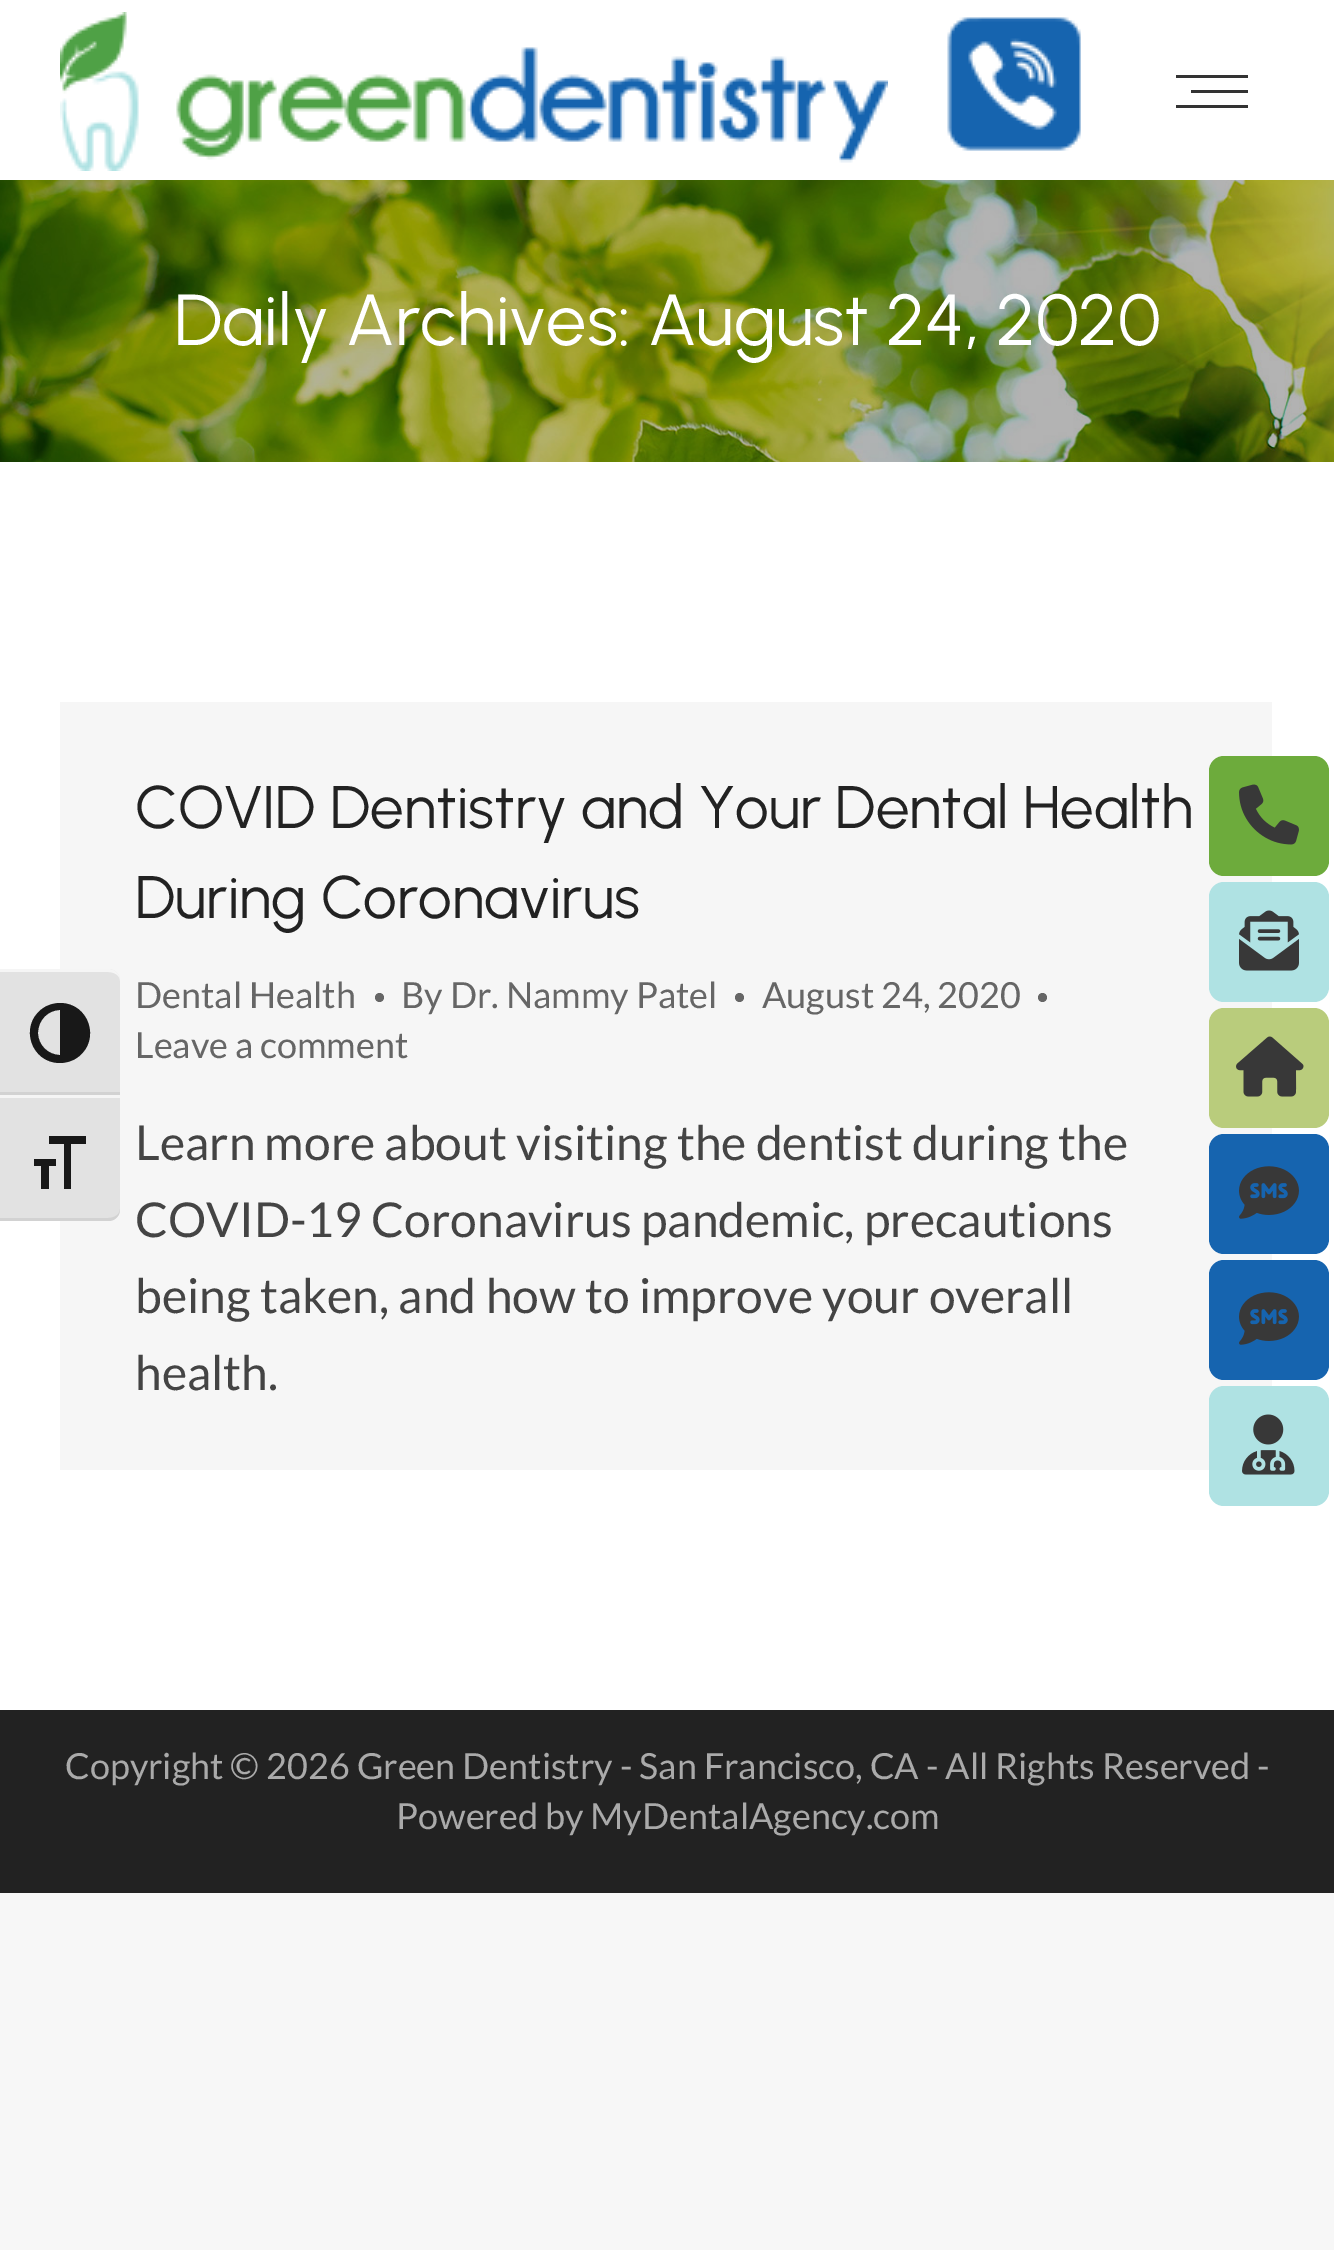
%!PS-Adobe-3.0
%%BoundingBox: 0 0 1334 2250
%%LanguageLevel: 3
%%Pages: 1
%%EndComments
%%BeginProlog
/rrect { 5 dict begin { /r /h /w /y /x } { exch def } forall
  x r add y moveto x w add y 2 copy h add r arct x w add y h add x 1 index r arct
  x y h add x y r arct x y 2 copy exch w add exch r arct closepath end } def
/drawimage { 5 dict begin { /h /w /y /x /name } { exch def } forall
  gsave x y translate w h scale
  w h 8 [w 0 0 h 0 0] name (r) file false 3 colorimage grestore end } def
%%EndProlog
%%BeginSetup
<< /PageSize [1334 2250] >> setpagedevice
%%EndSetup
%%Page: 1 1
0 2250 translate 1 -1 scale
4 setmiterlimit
0.969 setgray
0 0 1334 2250 rectfill
1 setgray
0 0 1334 1710 rectfill
(images/1.raw) 60 12 828 159 drawimage
(images/2.raw) 947 17 134 134 drawimage
0.2 setgray
1176 75 72 3 rectfill
1191 90 57 3 rectfill
1176 105 72 3 rectfill
(images/3.raw) 0 180 1334 282 drawimage
0.965 setgray
60 702 1212 768 rectfill
0.4 setgray
newpath 379.5 997.5 4.5 0 360 arc closepath fill
newpath 739.5 997.5 4.5 0 360 arc closepath fill
newpath 1042.5 997.5 4.5 0 360 arc closepath fill
0.133 setgray
0 1710 1334 183 rectfill
0.886 setgray
newpath 0 969 moveto 108 969 lineto 114.5 969 120 974.5 120 981 curveto 120 1095 lineto 0 1095 lineto closepath fill
0.961 setgray
newpath 0 969 moveto 0 972 lineto 108 972 lineto 115 972 120 976 120 981 curveto 120 974 115 969 108 969 curveto closepath fill
0.824 setgray
0 1092 120 3 rectfill
0.094 setgray
newpath 60 1003 moveto 54 1003 47 1005 42 1009 curveto 19 1026 31 1063 60 1063 curveto 66 1063 73 1061 78 1057 curveto 101 1040 89 1003 60 1003 curveto closepath 38 1033 moveto 38 1020 48 1010 60 1010 curveto 60 1055 lineto 48 1055 38 1045 38 1033 curveto closepath fill
0.886 setgray
newpath 0 1095 moveto 120 1095 lineto 120 1209 lineto 120 1215.5 114.5 1221 108 1221 curveto 0 1221 lineto closepath fill
0.961 setgray
0 1095 120 3 rectfill
0.824 setgray
newpath 0 1218 moveto 0 1221 lineto 108 1221 lineto 115 1221 120 1216 120 1209 curveto 120 1214 115 1218 108 1218 curveto closepath fill
0.094 setgray
newpath 34 1159 moveto 56 1159 lineto 56 1166 lineto 49 1166 lineto 49 1189 lineto 41 1189 lineto 41 1166 lineto 34 1166 lineto closepath 86 1144 moveto 71 1144 lineto 71 1189 lineto 64 1189 lineto 64 1144 lineto 49 1144 lineto 49 1136 lineto 86 1136 lineto closepath fill
0.427 0.671 0.235 setrgbcolor
1209 756 120 120 15 rrect fill
(images/4.raw) 1239 784 60 61 drawimage
0.686 0.886 0.89 setrgbcolor
1209 882 120 120 15 rrect fill
(images/5.raw) 1239 910 60 61 drawimage
0.725 0.8 0.486 setrgbcolor
1209 1008 120 120 15 rrect fill
(images/6.raw) 1236 1036 68 61 drawimage
0.086 0.392 0.686 setrgbcolor
1209 1134 120 120 15 rrect fill
(images/7.raw) 1239 1166 60 53 drawimage
1209 1260 120 120 15 rrect fill
(images/7.raw) 1239 1292 60 53 drawimage
0.686 0.886 0.89 setrgbcolor
1209 1386 120 120 15 rrect fill
(images/8.raw) 1242 1414 53 61 drawimage
/Urbanist-Regular [72 0 0 -72 0 0] selectfont
1 setgray
174 345 moveto (Daily Archives: August 24, 2020) show
/Urbanist-Regular [60 0 0 -60 0 0] selectfont
0.133 setgray
135 828 moveto (COVID Dentistry and Your Dental Health) show
135 918 moveto (During Coronavirus) show
/Lato-Regular [36 0 0 -36 0 0] selectfont
0.4 setgray
135 1008 moveto (Dental Health) show
401 1008 moveto (By Dr. Nammy Patel) show
762 1008 moveto (August 24, 2020) show
135 1058 moveto (Leave a comment) show
/Lato-Regular [48 0 0 -48 0 0] selectfont
0.267 setgray
135 1160 moveto (Learn more about visiting the dentist during the) show
135 1237 moveto (COVID-19 Coronavirus pandemic, precautions) show
135 1313 moveto (being taken, and how to improve your overall) show
135 1390 moveto (health.) show
/Lato-Regular [36 0 0 -36 0 0] selectfont
0.667 setgray
65 1779 moveto (Copyright © 2026 Green Dentistry - San Francisco, CA - All Rights Reserved -) show
396 1829 moveto (Powered by MyDentalAgency.com) show
showpage
%%EOF
